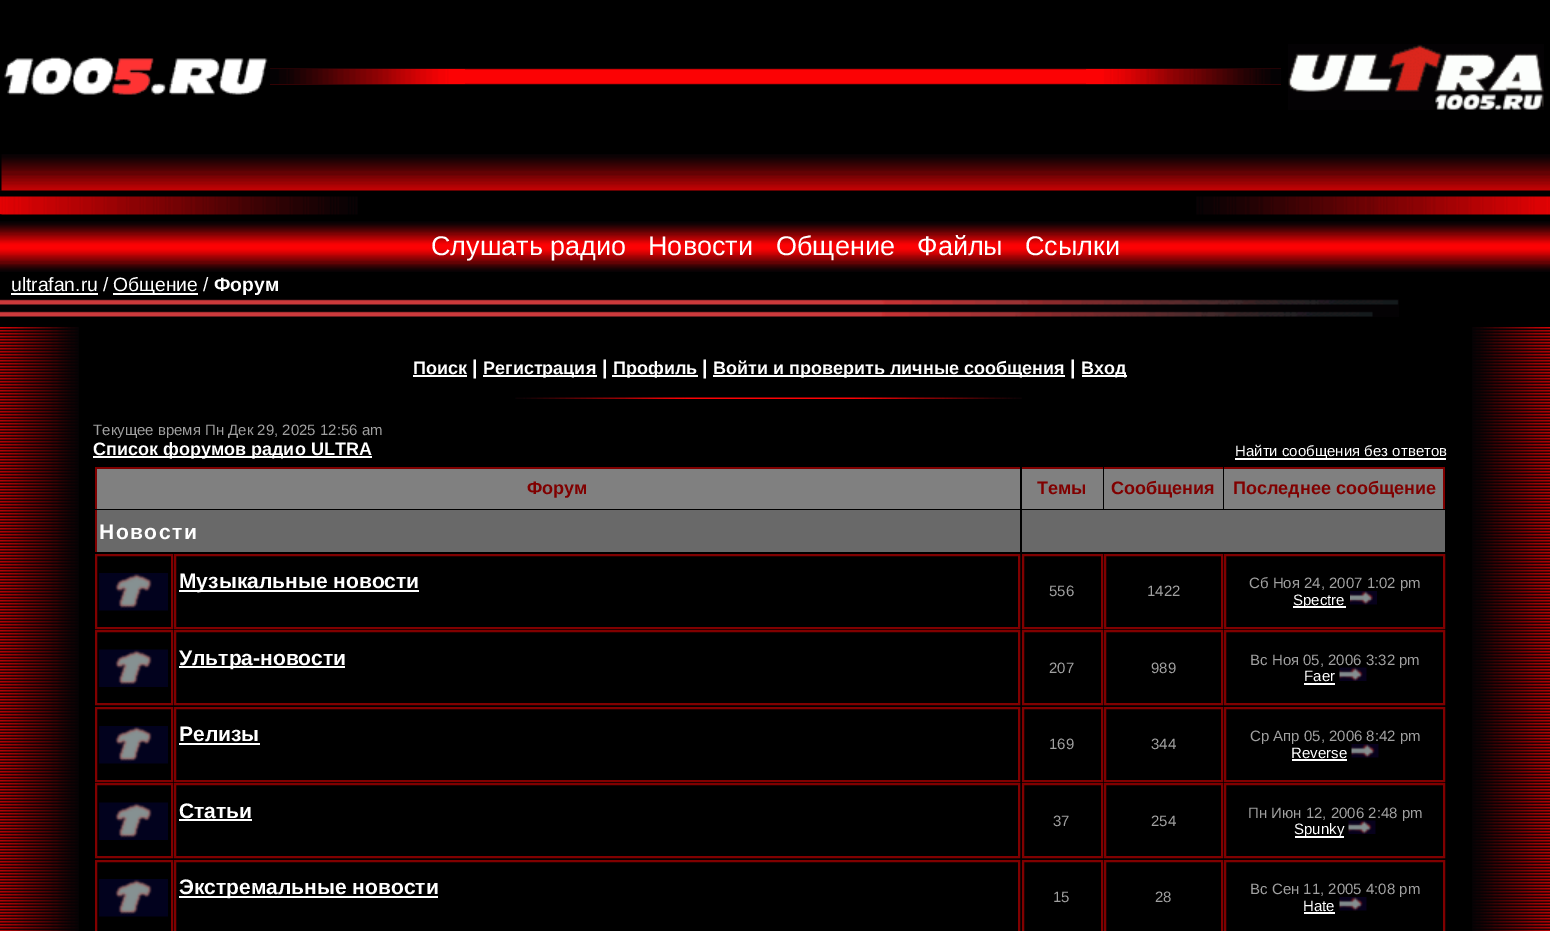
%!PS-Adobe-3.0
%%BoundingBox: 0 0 1550 931
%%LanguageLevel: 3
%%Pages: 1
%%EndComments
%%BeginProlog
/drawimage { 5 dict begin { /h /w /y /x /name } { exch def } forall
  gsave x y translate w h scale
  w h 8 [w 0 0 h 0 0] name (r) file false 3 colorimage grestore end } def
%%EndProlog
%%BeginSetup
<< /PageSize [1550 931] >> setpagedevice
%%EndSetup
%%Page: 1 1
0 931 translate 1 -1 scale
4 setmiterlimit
0 setgray
0 0 1550 931 rectfill
(images/1.raw) 4 56 264 39 drawimage
(images/2.raw) 270 68 816 17 drawimage
(images/3.raw) 270 69 195 15 drawimage
(images/4.raw) 1086 68 195 17 drawimage
(images/5.raw) 1086 69 195 15 drawimage
(images/6.raw) 1288 44 256 66 drawimage
(images/7.raw) 0 154 1550 37 drawimage
(images/8.raw) 0 154 2 37 drawimage
(images/9.raw) 0 190 2 1 drawimage
(images/10.raw) 0 196 358 19 drawimage
(images/11.raw) 1196 196 354 19 drawimage
(images/12.raw) 0 214 2 1 drawimage
(images/13.raw) 0 221 1550 51 drawimage
1 setgray
11 293 87 2 rectfill
113 293 85 2 rectfill
(images/14.raw) 0 299 876 18 drawimage
(images/15.raw) 876 299 523 18 drawimage
(images/16.raw) 0 327 79 604 drawimage
(images/17.raw) 0 327 68 3 drawimage
413 375 54 2 rectfill
483 375 114 2 rectfill
612 375 86 2 rectfill
713 375 352 2 rectfill
1082 375 45 2 rectfill
(images/18.raw) 515 397 507 2 drawimage
93 456 279 2 rectfill
1235 458 211 2 rectfill
0.502 setgray
97 469 923 40 rectfill
0.502 0 0 setrgbcolor
95 467 925 2 rectfill
95 467 2 42 rectfill
0.502 setgray
1022 469 81 40 rectfill
0.502 0 0 setrgbcolor
1022 467 81 2 rectfill
0.502 setgray
1104 469 119 40 rectfill
0.502 0 0 setrgbcolor
1104 467 119 2 rectfill
0.502 setgray
1224 469 219 40 rectfill
0.502 0 0 setrgbcolor
1224 467 221 2 rectfill
1443 467 2 42 rectfill
0.412 setgray
97 510 923 42 rectfill
0.502 0 0 setrgbcolor
95 510 2 42 rectfill
0.412 setgray
1022 510 423 42 rectfill
0.502 0 0 setrgbcolor
2 setlinewidth
96 555 76 73 rectstroke
(images/19.raw) 99 573 69 38 drawimage
175 555 844 73 rectstroke
1 setgray
179 590 240 2 rectfill
0.502 0 0 setrgbcolor
1023 555 79 73 rectstroke
1105 555 117 73 rectstroke
1225 555 219 73 rectstroke
1 setgray
1293 606 53 2 rectfill
0.502 0 0 setrgbcolor
96 631 76 73 rectstroke
(images/21.raw) 99 649 69 38 drawimage
175 631 844 73 rectstroke
1 setgray
179 666 166 2 rectfill
0.502 0 0 setrgbcolor
1023 631 79 73 rectstroke
1105 631 117 73 rectstroke
1225 631 219 73 rectstroke
1 setgray
1304 683 31 2 rectfill
0.502 0 0 setrgbcolor
96 708 76 73 rectstroke
(images/19.raw) 99 726 69 38 drawimage
175 708 844 73 rectstroke
1 setgray
179 743 81 2 rectfill
0.502 0 0 setrgbcolor
1023 708 79 73 rectstroke
1105 708 117 73 rectstroke
1225 708 219 73 rectstroke
1 setgray
1292 759 55 2 rectfill
0.502 0 0 setrgbcolor
96 784 76 73 rectstroke
(images/21.raw) 99 802 69 38 drawimage
175 784 844 73 rectstroke
1 setgray
179 819 73 2 rectfill
0.502 0 0 setrgbcolor
1023 784 79 73 rectstroke
1105 784 117 73 rectstroke
1225 784 219 73 rectstroke
1 setgray
1295 836 49 2 rectfill
0.502 0 0 setrgbcolor
96 861 76 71 rectstroke
(images/19.raw) 99 879 69 38 drawimage
175 861 844 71 rectstroke
1 setgray
179 896 259 2 rectfill
0.502 0 0 setrgbcolor
1023 861 79 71 rectstroke
1105 861 117 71 rectstroke
1225 861 219 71 rectstroke
1 setgray
1304 912 31 2 rectfill
(images/24.raw) 1472 327 78 604 drawimage
(images/25.raw) 1483 327 67 3 drawimage
/LiberationSans-Regular [27 0 0 -27 0 0] selectfont
431 255 moveto (Слушать радио) show
648 255 moveto (Новости) show
776 255 moveto (Общение) show
917 255 moveto (Файлы) show
1025 255 moveto (Ссылки) show
/LiberationSans-Regular [19.25 0 0 -19.25 0 0] selectfont
11 291 moveto (ultrafan.ru /) show
113 291 moveto (Общение /) show
/LiberationSans-Bold [19.25 0 0 -19.25 0 0] selectfont
214 291 moveto (Форум) show
/LiberationSans-Bold [18 0 0 -18 0 0] selectfont
413 374 moveto (Поиск) show
/LiberationSans-Bold [20 0 0 -20 0 0] selectfont
472 374 moveto (|) show
/LiberationSans-Bold [18 0 0 -18 0 0] selectfont
483 374 moveto (Регистрация) show
/LiberationSans-Bold [20 0 0 -20 0 0] selectfont
602 374 moveto (|) show
/LiberationSans-Bold [18 0 0 -18 0 0] selectfont
613 374 moveto (Профиль) show
/LiberationSans-Bold [20 0 0 -20 0 0] selectfont
702 374 moveto (|) show
/LiberationSans-Bold [18 0 0 -18 0 0] selectfont
713 374 moveto (Войти и проверить личные сообщения) show
/LiberationSans-Bold [20 0 0 -20 0 0] selectfont
1070 374 moveto (|) show
/LiberationSans-Bold [18 0 0 -18 0 0] selectfont
1081 374 moveto (Вход) show
/LiberationSans-Regular [15 0 0 -15 0 0] selectfont
0.627 setgray
93 435 moveto (Текущее время Пн Дек 29, 2025 12:56 am) show
/LiberationSans-Bold [18 0 0 -18 0 0] selectfont
1 setgray
93 455 moveto (Список форумов радио ULTRA) show
/LiberationSans-Regular [15 0 0 -15 0 0] selectfont
1235 456 moveto (Найти сообщения без ответов) show
/LiberationSans-Bold [18 0 0 -18 0 0] selectfont
0.502 0 0 setrgbcolor
527 494 moveto (Форум) show
1037 494 moveto (Темы) show
1111 494 moveto (Сообщения) show
1233 494 moveto (Последнее сообщение) show
/LiberationSans-Bold [21 0 0 -21 0 0] selectfont
1 setgray
99 539 moveto 1.5 0 (Новости) ashow
179 588 moveto (Музыкальные новости) show
/LiberationSans-Regular [15 0 0 -15 0 0] selectfont
0.627 setgray
1049 596 moveto (556) show
1147 596 moveto (1422) show
1249 588 moveto (Сб Ноя 24, 2007 1:02 pm) show
1 setgray
1293 605 moveto (Spectre) show
(images/20.raw) 1350 591 27 14 drawimage
/LiberationSans-Bold [21 0 0 -21 0 0] selectfont
179 665 moveto (Ультра-новости) show
/LiberationSans-Regular [15 0 0 -15 0 0] selectfont
0.627 setgray
1049 673 moveto (207) show
1151 673 moveto (989) show
1250 665 moveto (Вс Ноя 05, 2006 3:32 pm) show
1 setgray
1304 681 moveto (Faer) show
(images/22.raw) 1339 667 28 14 drawimage
/LiberationSans-Bold [21 0 0 -21 0 0] selectfont
179 741 moveto (Релизы) show
/LiberationSans-Regular [15 0 0 -15 0 0] selectfont
0.627 setgray
1049 749 moveto (169) show
1151 749 moveto (344) show
1250 741 moveto (Ср Апр 05, 2006 8:42 pm) show
1 setgray
1291 758 moveto (Reverse) show
(images/23.raw) 1351 744 28 14 drawimage
/LiberationSans-Bold [21 0 0 -21 0 0] selectfont
179 818 moveto (Статьи) show
/LiberationSans-Regular [15 0 0 -15 0 0] selectfont
0.627 setgray
1053 826 moveto (37) show
1151 826 moveto (254) show
1248 818 moveto (Пн Июн 12, 2006 2:48 pm) show
1 setgray
1294 834 moveto (Spunky) show
(images/22.raw) 1348 820 28 14 drawimage
/LiberationSans-Bold [21 0 0 -21 0 0] selectfont
179 894 moveto (Экстремальные новости) show
/LiberationSans-Regular [15 0 0 -15 0 0] selectfont
0.627 setgray
1053 902 moveto (15) show
1155 902 moveto (28) show
1250 894 moveto (Вс Сен 11, 2005 4:08 pm) show
1 setgray
1303 911 moveto (Hate) show
(images/23.raw) 1339 897 28 14 drawimage
showpage
%%EOF
